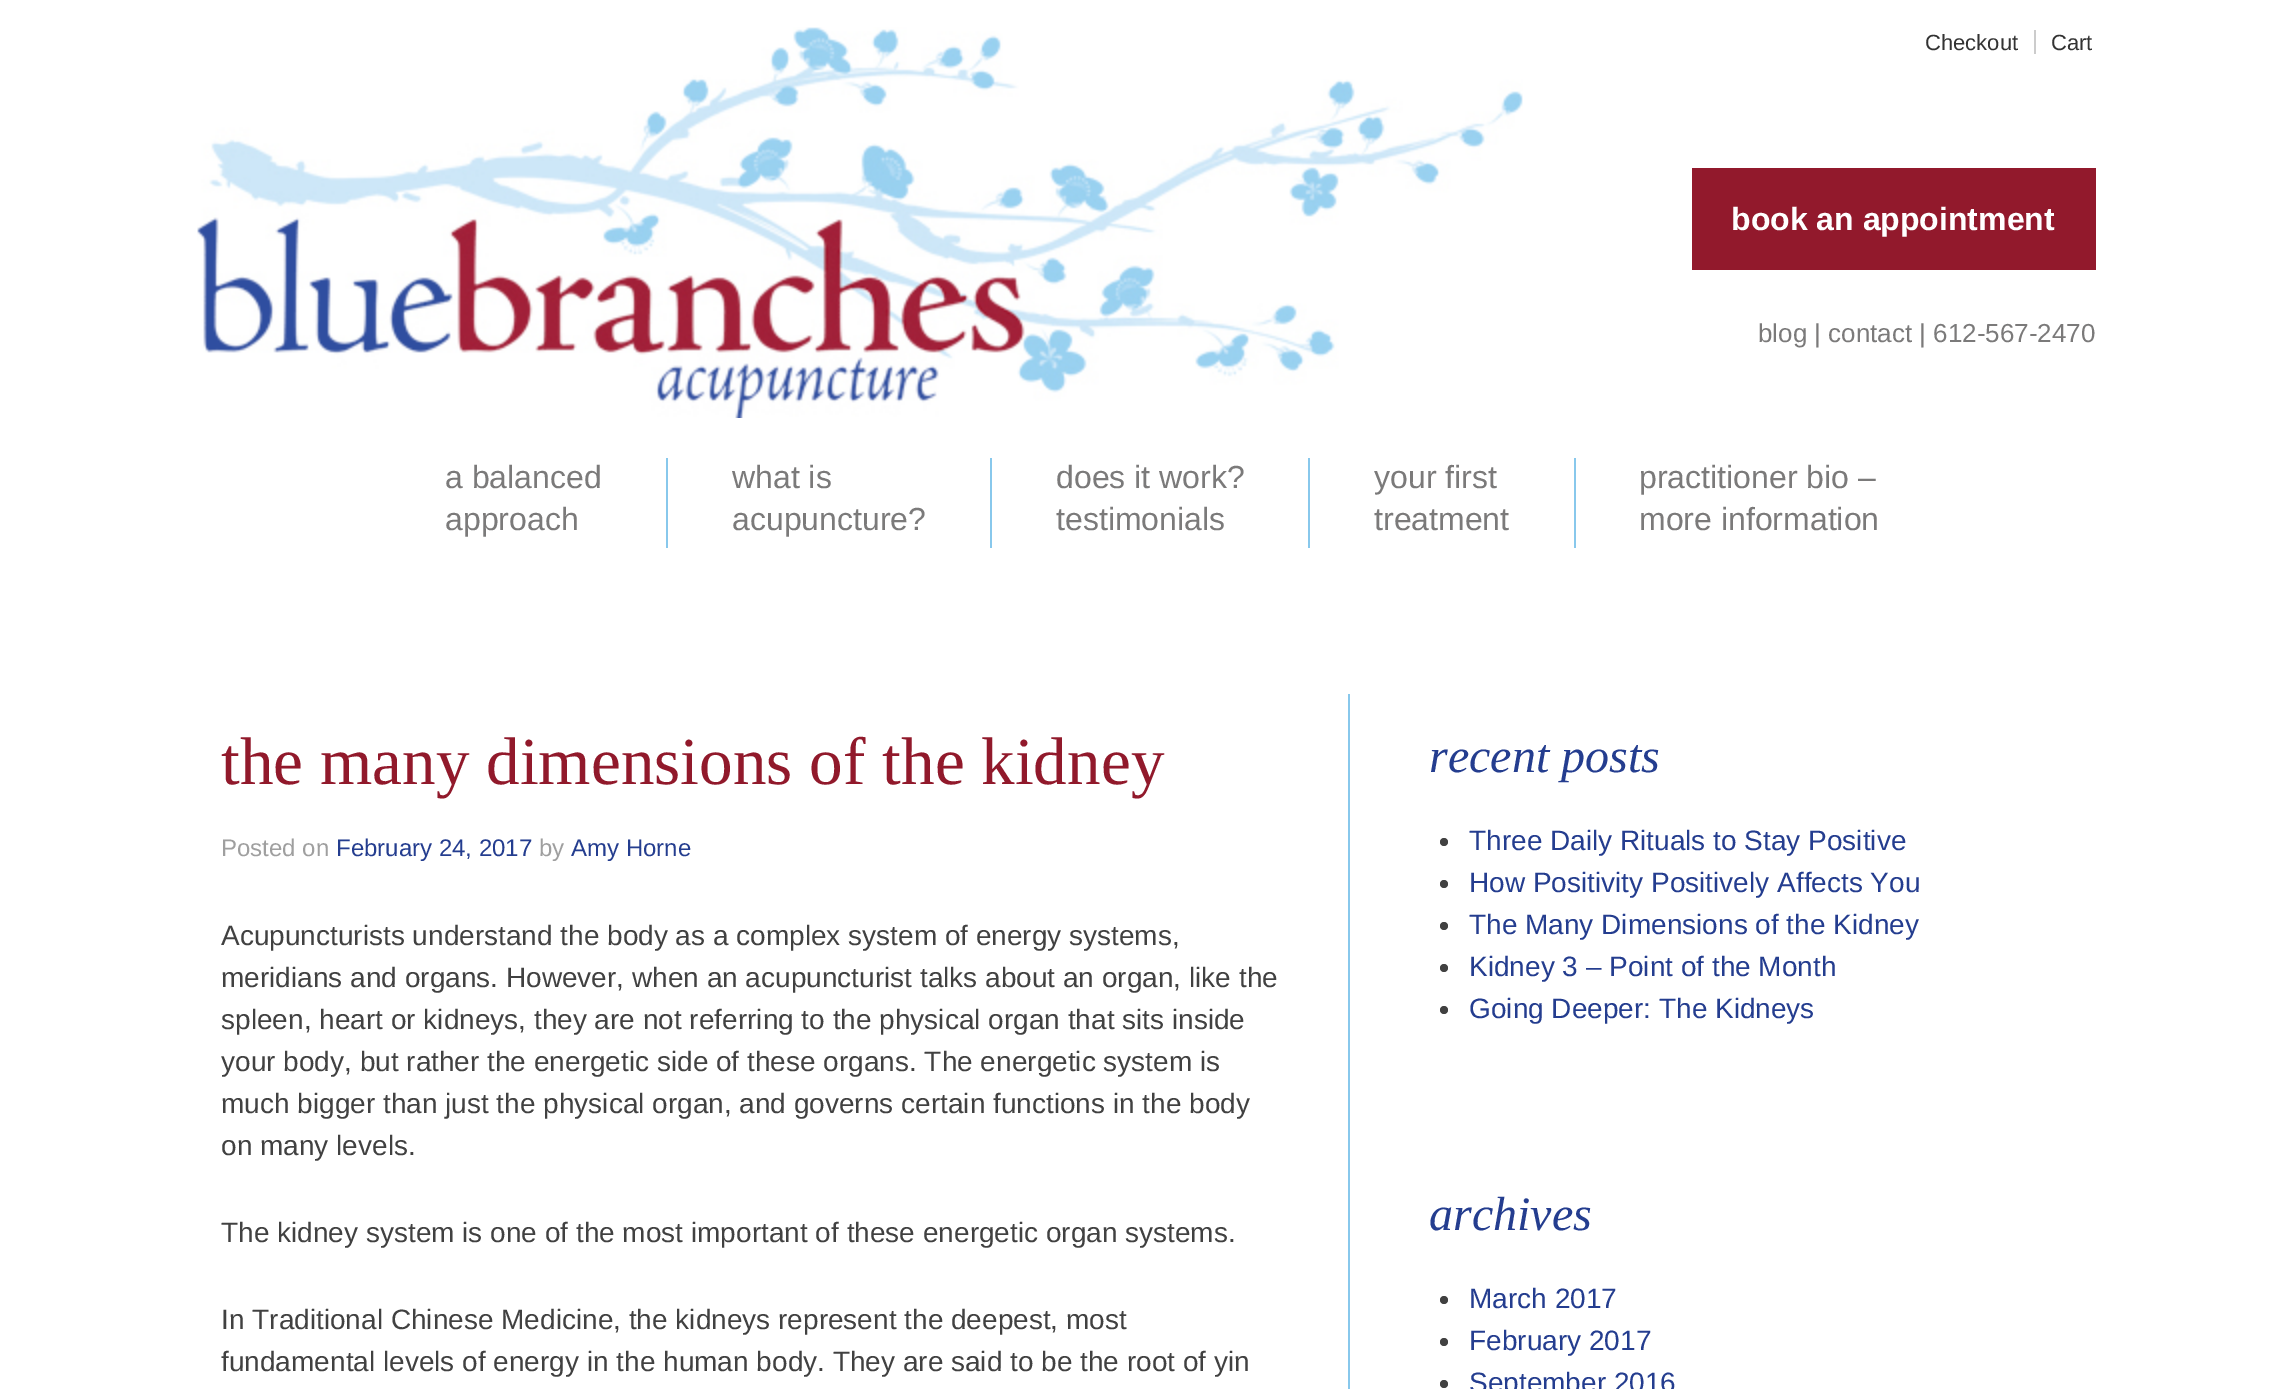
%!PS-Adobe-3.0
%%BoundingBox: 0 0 2281 1389
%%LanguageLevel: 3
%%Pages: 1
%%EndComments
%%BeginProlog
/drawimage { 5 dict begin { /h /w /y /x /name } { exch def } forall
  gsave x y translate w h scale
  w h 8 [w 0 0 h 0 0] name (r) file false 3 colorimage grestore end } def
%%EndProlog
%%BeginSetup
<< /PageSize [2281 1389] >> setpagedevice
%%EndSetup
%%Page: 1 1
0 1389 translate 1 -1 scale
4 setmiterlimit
1 setgray
0 0 2281 1389 rectfill
(images/1.raw) 197 27 1326 391 drawimage
0.8 setgray
2034 30 2 24 rectfill
0.573 0.098 0.173 setrgbcolor
1692 168 404 102 rectfill
0.533 0.784 0.925 setrgbcolor
666 458 2 90 rectfill
990 458 2 90 rectfill
1308 458 2 90 rectfill
1574 458 2 90 rectfill
1348 694 2 695 rectfill
0.255 setgray
newpath 1444 842 4 0 360 arc closepath fill
newpath 1444 884 4 0 360 arc closepath fill
newpath 1444 926 4 0 360 arc closepath fill
newpath 1444 968 4 0 360 arc closepath fill
newpath 1444 1010 4 0 360 arc closepath fill
newpath 1444 1300 4 0 360 arc closepath fill
newpath 1444 1342 4 0 360 arc closepath fill
newpath 1444 1384 4 0 360 arc closepath fill
/LiberationSans-Regular [22 0 0 -22 0 0] selectfont
0.2 setgray
1925 50 moveto (Checkout) show
2051 50 moveto (Cart) show
/LiberationSans-Bold [32 0 0 -32 0 0] selectfont
1 setgray
1731 230 moveto (book an appointment) show
/LiberationSans-Regular [26 0 0 -26 0 0] selectfont
0.482 0.478 0.478 setrgbcolor
1758 342 moveto (blog | contact | 612-567-2470) show
/LiberationSans-Regular [32 0 0 -32 0 0] selectfont
445 488 moveto (a balanced) show
445 530 moveto (approach) show
732 488 moveto (what is) show
732 530 moveto (acupuncture?) show
1056 488 moveto (does it work?) show
1056 530 moveto (testimonials) show
1374 488 moveto (your first) show
1374 530 moveto (treatment) show
1639 488 moveto (practitioner bio –) show
1639 530 moveto (more information) show
/LiberationSerif-Regular [67.25 0 0 -67.25 0 0] selectfont
0.569 0.098 0.169 setrgbcolor
221 784 moveto (the many dimensions of the kidney) show
/LiberationSans-Regular [24 0 0 -24 0 0] selectfont
0.624 setgray
221 856 moveto (Posted on) show
0.141 0.239 0.561 setrgbcolor
336 856 moveto (February 24, 2017) show
0.624 setgray
539 856 moveto (by) show
0.141 0.239 0.561 setrgbcolor
571 856 moveto (Amy Horne) show
/LiberationSans-Regular [28 0 0 -28 0 0] selectfont
0.255 setgray
221 945 moveto (Acupuncturists understand the body as a complex system of energy systems,) show
221 987 moveto (meridians and organs. However, when an acupuncturist talks about an organ, like the) show
221 1029 moveto (spleen, heart or kidneys, they are not referring to the physical organ that sits inside) show
221 1071 moveto (your body, but rather the energetic side of these organs. The energetic system is) show
221 1113 moveto (much bigger than just the physical organ, and governs certain functions in the body) show
221 1155 moveto (on many levels.) show
221 1242 moveto (The kidney system is one of the most important of these energetic organ systems.) show
221 1329 moveto (In Traditional Chinese Medicine, the kidneys represent the deepest, most) show
221 1371 moveto (fundamental levels of energy in the human body. They are said to be the root of yin) show
/LiberationSerif-Italic [48 0 0 -48 0 0] selectfont
0.141 0.239 0.561 setrgbcolor
1429 772 moveto (recent posts) show
/LiberationSans-Regular [28 0 0 -28 0 0] selectfont
1469 850 moveto (Three Daily Rituals to Stay Positive) show
1469 892 moveto (How Positivity Positively Affects You) show
1469 934 moveto (The Many Dimensions of the Kidney) show
1469 976 moveto (Kidney 3 – Point of the Month) show
1469 1018 moveto (Going Deeper: The Kidneys) show
/LiberationSerif-Italic [48 0 0 -48 0 0] selectfont
1429 1230 moveto (archives) show
/LiberationSans-Regular [28 0 0 -28 0 0] selectfont
1469 1308 moveto (March 2017) show
1469 1350 moveto (February 2017) show
1469 1392 moveto (September 2016) show
showpage
%%EOF
